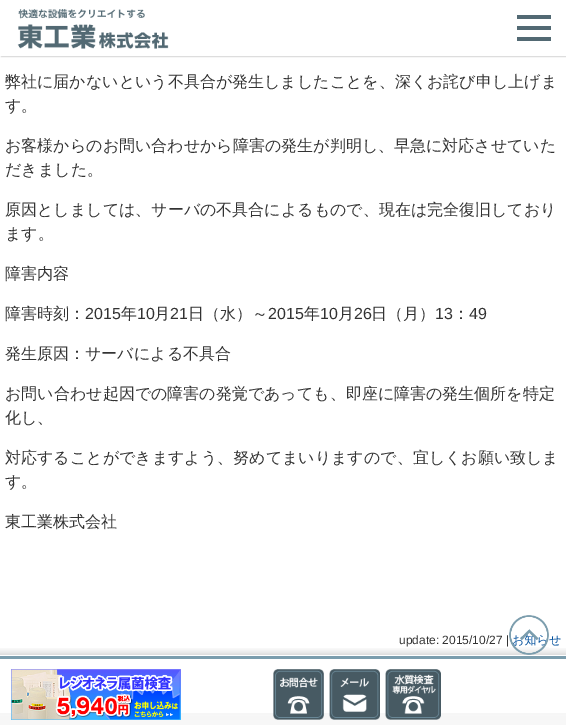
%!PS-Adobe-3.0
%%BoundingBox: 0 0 566 725
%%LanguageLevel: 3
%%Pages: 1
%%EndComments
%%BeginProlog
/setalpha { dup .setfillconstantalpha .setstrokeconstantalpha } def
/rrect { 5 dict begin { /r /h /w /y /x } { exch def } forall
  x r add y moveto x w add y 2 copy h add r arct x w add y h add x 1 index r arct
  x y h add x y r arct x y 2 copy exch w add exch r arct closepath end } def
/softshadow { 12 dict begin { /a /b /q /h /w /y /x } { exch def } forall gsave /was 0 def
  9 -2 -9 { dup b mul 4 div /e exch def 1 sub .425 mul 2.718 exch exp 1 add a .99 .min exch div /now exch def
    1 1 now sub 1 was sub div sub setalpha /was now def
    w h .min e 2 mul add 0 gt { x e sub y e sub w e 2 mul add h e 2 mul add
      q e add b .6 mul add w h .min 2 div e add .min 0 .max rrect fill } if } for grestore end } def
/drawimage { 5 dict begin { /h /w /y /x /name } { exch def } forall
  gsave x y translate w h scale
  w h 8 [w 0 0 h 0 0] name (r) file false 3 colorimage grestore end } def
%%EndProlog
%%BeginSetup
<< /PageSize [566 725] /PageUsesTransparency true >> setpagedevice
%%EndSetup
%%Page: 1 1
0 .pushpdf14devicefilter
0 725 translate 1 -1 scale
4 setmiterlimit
1 setgray
0 0 566 725 rectfill
0.847 setgray
1 1 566 56 0 0.5 1 softshadow
1 setgray
0 0 566 56 rectfill
(images/1.raw) 17 9 152 40 drawimage
0.322 0.412 0.451 setrgbcolor
517 15 34 4 rectfill
517 26 34 4 rectfill
517 37 34 4 rectfill
(images/2.raw) 0 648 566 77 drawimage
(images/4.raw) 11 669 170 51 drawimage
(images/5.raw) 273 669 51 51 drawimage
(images/6.raw) 329 669 51 51 drawimage
(images/7.raw) 385 669 56 51 drawimage
/WenQuanYiZenHei-Medium [16 0 0 -16 0 0] selectfont
0.2 setgray
5 87 moveto (弊社に届かないという不具合が発生しましたことを、深くお詫び申し上げま) show
5 111 moveto (す。) show
5 151 moveto (お客様からのお問い合わせから障害の発生が判明し、早急に対応させていた) show
5 175 moveto (だきました。) show
5 215 moveto (原因としましては、サーバの不具合によるもので、現在は完全復旧しており) show
5 239 moveto (ます。) show
5 279 moveto (障害内容) show
5 319 moveto (障害時刻：) show
/LiberationSans-Regular [16 0 0 -16 0 0] selectfont
85 319 moveto (2015) show
/WenQuanYiZenHei-Medium [16 0 0 -16 0 0] selectfont
121 319 moveto (年) show
/LiberationSans-Regular [16 0 0 -16 0 0] selectfont
137 319 moveto (10) show
/WenQuanYiZenHei-Medium [16 0 0 -16 0 0] selectfont
154 319 moveto (月) show
/LiberationSans-Regular [16 0 0 -16 0 0] selectfont
170 319 moveto (21) show
/WenQuanYiZenHei-Medium [16 0 0 -16 0 0] selectfont
188 319 moveto (日（水）～) show
/LiberationSans-Regular [16 0 0 -16 0 0] selectfont
268 319 moveto (2015) show
/WenQuanYiZenHei-Medium [16 0 0 -16 0 0] selectfont
304 319 moveto (年) show
/LiberationSans-Regular [16 0 0 -16 0 0] selectfont
320 319 moveto (10) show
/WenQuanYiZenHei-Medium [16 0 0 -16 0 0] selectfont
338 319 moveto (月) show
/LiberationSans-Regular [16 0 0 -16 0 0] selectfont
354 319 moveto (26) show
/WenQuanYiZenHei-Medium [16 0 0 -16 0 0] selectfont
371 319 moveto (日（月）) show
/LiberationSans-Regular [16 0 0 -16 0 0] selectfont
435 319 moveto (13) show
/WenQuanYiZenHei-Medium [16 0 0 -16 0 0] selectfont
453 319 moveto (：) show
/LiberationSans-Regular [16 0 0 -16 0 0] selectfont
469 319 moveto (49) show
/WenQuanYiZenHei-Medium [16 0 0 -16 0 0] selectfont
5 359 moveto (発生原因：サーバによる不具合) show
5 399 moveto (お問い合わせ起因での障害の発覚であっても、即座に障害の発生個所を特定) show
5 423 moveto (化し、) show
5 463 moveto (対応することができますよう、努めてまいりますので、宜しくお願い致しま) show
5 487 moveto (す。) show
5 527 moveto (東工業株式会社) show
/LiberationSans-Regular [12 0 0 -12 0 0] selectfont
399 644 moveto (update: 2015/10/27 |) show
/WenQuanYiZenHei-Medium [12 0 0 -12 0 0] selectfont
0 0.306 0.608 setrgbcolor
512 644 moveto (お知らせ) show
(images/3.raw) 509 615 40 40 drawimage
.poppdf14devicefilter showpage
%%EOF
